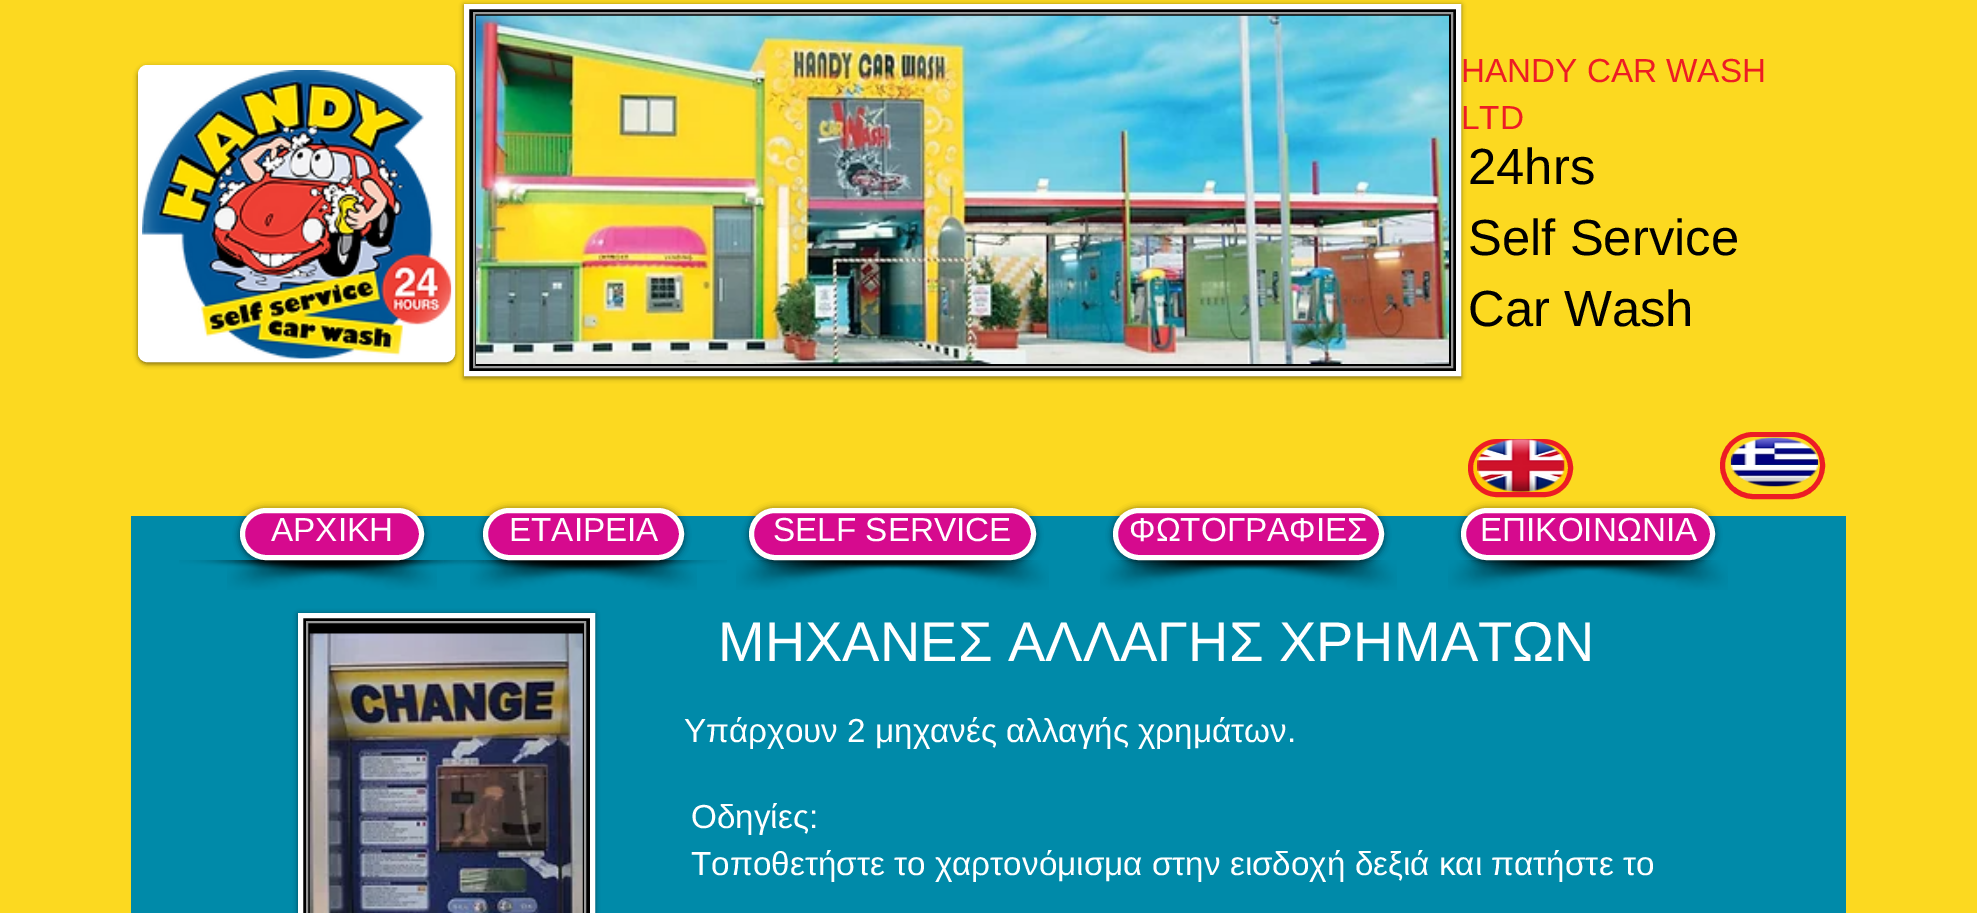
%!PS-Adobe-3.0
%%BoundingBox: 0 0 1977 913
%%LanguageLevel: 3
%%Pages: 1
%%EndComments
%%BeginProlog
/setalpha { dup .setfillconstantalpha .setstrokeconstantalpha } def
/rrect { 5 dict begin { /r /h /w /y /x } { exch def } forall
  x r add y moveto x w add y 2 copy h add r arct x w add y h add x 1 index r arct
  x y h add x y r arct x y 2 copy exch w add exch r arct closepath end } def
/softshadow { 12 dict begin { /a /b /q /h /w /y /x } { exch def } forall gsave /was 0 def
  9 -2 -9 { dup b mul 4 div /e exch def 1 sub .425 mul 2.718 exch exp 1 add a .99 .min exch div /now exch def
    1 1 now sub 1 was sub div sub setalpha /was now def
    w h .min e 2 mul add 0 gt { x e sub y e sub w e 2 mul add h e 2 mul add
      q e add b .6 mul add w h .min 2 div e add .min 0 .max rrect fill } if } for grestore end } def
/drawimage { 5 dict begin { /h /w /y /x /name } { exch def } forall
  gsave x y translate w h scale
  w h 8 [w 0 0 h 0 0] name (r) file false 3 colorimage grestore end } def
%%EndProlog
%%BeginSetup
<< /PageSize [1977 913] /PageUsesTransparency true >> setpagedevice
%%EndSetup
%%Page: 1 1
0 .pushpdf14devicefilter
0 913 translate 1 -1 scale
4 setmiterlimit
0.988 0.851 0.125 setrgbcolor
0 0 1977 913 rectfill
0 setgray
138 67 317 297 9 2.5 0.5 softshadow
1 setgray
140 67 313 293 7 rrect gsave fill grestore
4 setlinewidth
stroke
(images/1.raw) 142 70 310 289 drawimage
0 setgray
464 5 997 373 0 2.5 0.5 softshadow
newpath 466.5 6.5 moveto 1458.5 6.5 lineto 1458.5 373.5 lineto 466.5 373.5 lineto closepath gsave fill grestore
1 setgray
5 setlinewidth
stroke
(images/2.raw) 476 15 973 349 drawimage
0.6 setgray
2 setlinewidth
474 13 978 354 rectstroke
1 0.796 0.02 setrgbcolor
1470.5 441.5 100 53 26.5 rrect gsave fill grestore
0.929 0.11 0.141 setrgbcolor
5 setlinewidth
stroke
(images/3.raw) 1477 439 88 53 drawimage
0 0.541 0.663 setrgbcolor
131 516 1715 397 rectfill
(images/12.raw) 1448 560 257 30 drawimage
(images/13.raw) 1471 560 257 30 drawimage
0 setgray
1461 509 254 53 26.5 3.5 0.6 softshadow
0.929 0.11 0.141 setrgbcolor
1722.5 434.5 100 62 31 rrect stroke
(images/4.raw) 1730 437 89 50 drawimage
(images/6.raw) 227 560 257 30 drawimage
(images/5.raw) 179 560 258 30 drawimage
0 setgray
240 509 184 53 26.5 3.5 0.6 softshadow
0.839 0.039 0.557 setrgbcolor
242.5 510.5 179 47 23.5 rrect gsave fill grestore
1 setgray
stroke
(images/8.raw) 470 560 257 30 drawimage
(images/7.raw) 444 560 253 30 drawimage
0 setgray
483 509 201 53 26.5 3.5 0.6 softshadow
0.839 0.039 0.557 setrgbcolor
485.5 510.5 196 47 23.5 rrect gsave fill grestore
1 setgray
stroke
(images/9.raw) 736 560 257 30 drawimage
(images/10.raw) 845 560 204 30 drawimage
0 setgray
749 509 287 53 26.5 3.5 0.6 softshadow
0.839 0.039 0.557 setrgbcolor
751.5 510.5 282 47 23.5 rrect gsave fill grestore
1 setgray
stroke
(images/9.raw) 1100 560 257 30 drawimage
(images/11.raw) 1166 560 231 30 drawimage
0 setgray
1113 509 271 53 26.5 3.5 0.6 softshadow
0.839 0.039 0.557 setrgbcolor
1115.5 510.5 266 47 23.5 rrect gsave fill grestore
1 setgray
stroke
0.839 0.039 0.557 setrgbcolor
1463.5 510.5 249 47 23.5 rrect gsave fill grestore
1 setgray
stroke
0 setgray
298 614 297 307 0 2.5 0.5 softshadow
newpath 300.5 615.5 moveto 592.5 615.5 lineto 592.5 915.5 lineto 300.5 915.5 lineto closepath gsave fill grestore
1 setgray
stroke
(images/14.raw) 309 633 274 280 drawimage
0.6 setgray
2 setlinewidth
307 622 278 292 rectstroke
/LiberationSans-Regular [33.25 0 0 -33.25 0 0] selectfont
0.929 0.11 0.141 setrgbcolor
1461 82 moveto (HANDY CAR WASH) show
1461 129 moveto (LTD) show
/LiberationSans-Regular [50.75 0 0 -50.75 0 0] selectfont
0 setgray
1468 184 moveto (24hrs) show
1468 255 moveto (Self Service) show
1468 326 moveto (Car Wash) show
/LiberationSans-Regular [33.25 0 0 -33.25 0 0] selectfont
1 setgray
271 541 moveto (ΑΡΧΙΚΗ) show
509 541 moveto (ΕΤΑΙΡΕΙΑ) show
773 541 moveto (SELF SERVICE) show
1129 541 moveto (ΦΩΤΟΓΡΑΦΙΕΣ) show
1480 541 moveto (ΕΠΙΚΟΙΝΩΝΙΑ) show
/LiberationSans-Regular [56 0 0 -56 0 0] selectfont
718 661 moveto (ΜΗΧΑΝΕΣ ΑΛΛΑΓΗΣ ΧΡΗΜΑΤΩΝ) show
/LiberationSans-Regular [33.25 0 0 -33.25 0 0] selectfont
684 742 moveto (Υπάρχουν 2 μηχανές αλλαγής χρημάτων.) show
691 828 moveto (Οδηγίες:) show
691 875 moveto (Τοποθετήστε το χαρτονόμισμα στην εισδοχή δεξιά και πατήστε το) show
.poppdf14devicefilter showpage
%%EOF
